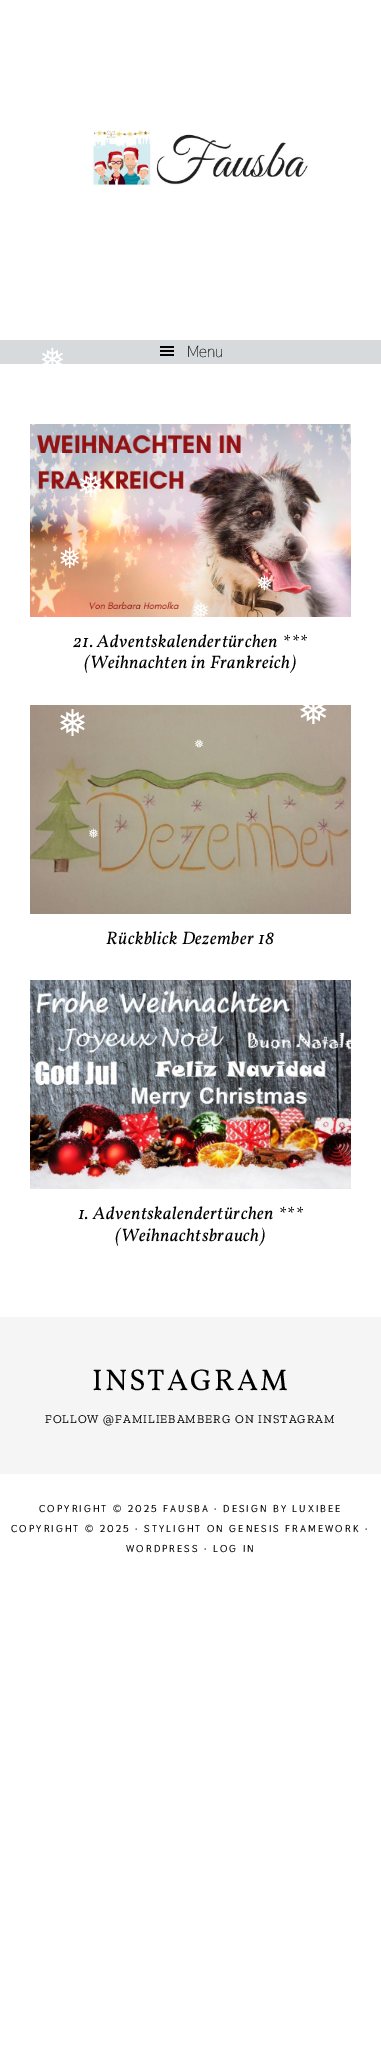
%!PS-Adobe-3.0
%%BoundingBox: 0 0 381 2063
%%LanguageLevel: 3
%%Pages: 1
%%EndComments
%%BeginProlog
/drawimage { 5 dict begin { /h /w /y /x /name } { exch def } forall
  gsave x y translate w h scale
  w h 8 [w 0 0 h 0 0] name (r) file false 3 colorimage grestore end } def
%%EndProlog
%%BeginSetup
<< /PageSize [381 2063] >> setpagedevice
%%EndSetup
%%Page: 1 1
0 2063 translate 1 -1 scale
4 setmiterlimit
1 setgray
0 0 381 2063 rectfill
(images/1.raw) 90 130 218 57 drawimage
0.843 0.855 0.867 setrgbcolor
0 340 381 24 rectfill
(images/2.raw) 160 346 14 10 drawimage
(images/3.raw) 30 424 321 193 drawimage
(images/4.raw) 30 705 321 209 drawimage
(images/5.raw) 30 980 321 209 drawimage
0.961 setgray
0 1317 381 157 rectfill
/Thasadith-Regular [16 0 0 -16 0 0] selectfont
0 setgray
187 357 moveto (Menu) show
/Vollkorn-Italic [18 0 0 -18 0 0] selectfont
73 647 moveto 0.5 0 (21. Adventskalendertürchen ***) ashow
84 668 moveto 0.5 0 (\(Weihnachten in Frankreich\)) ashow
106 944 moveto 0.5 0 (Rückblick Dezember 18) ashow
78 1219 moveto 0.5 0 (1. Adventskalendertürchen ***) ashow
115 1241 moveto 0.5 0 (\(Weihnachtsbrauch\)) ashow
/Vollkorn-Regular [30 0 0 -30 0 0] selectfont
92 1390 moveto 2 0 (INSTAGRAM) ashow
/ZillaSlab-Regular [12 0 0 -12 0 0] selectfont
45 1423 moveto 1 0 (FOLLOW @FAMILIEBAMBERG ON INSTAGRAM) ashow
/Thasadith-Bold [10 0 0 -10 0 0] selectfont
39 1512 moveto 2 0 (COPYRIGHT © 2025 FAUSBA · DESIGN BY LUXIBEE) ashow
11 1532 moveto 2 0 (COPYRIGHT © 2025 · STYLIGHT ON GENESIS FRAMEWORK ·) ashow
126 1552 moveto 2 0 (WORDPRESS · LOG IN) ashow
/DejaVuSans-Regular [32 0 0 -32 0 0] selectfont
1 setgray
39 371 moveto (❅) show
/DejaVuSans-Regular [33 0 0 -33 0 0] selectfont
77 497 moveto (❅) show
/DejaVuSans-Regular [28 0 0 -28 0 0] selectfont
58 568 moveto (❅) show
/DejaVuSans-Regular [20 0 0 -20 0 0] selectfont
256 590 moveto (❅) show
/DejaVuSans-Regular [21 0 0 -21 0 0] selectfont
192 618 moveto (❅) show
/DejaVuSans-Regular [37 0 0 -37 0 0] selectfont
57 736 moveto (❅) show
/DejaVuSans-Regular [39 0 0 -39 0 0] selectfont
297 724 moveto (❅) show
/DejaVuSans-Regular [12 0 0 -12 0 0] selectfont
194 748 moveto (❅) show
/DejaVuSans-Regular [13 0 0 -13 0 0] selectfont
88 838 moveto (❅) show
/DejaVuSans-Regular [11 0 0 -11 0 0] selectfont
0.616 0.643 0.671 setrgbcolor
206 992 moveto (❅) show
showpage
%%EOF
